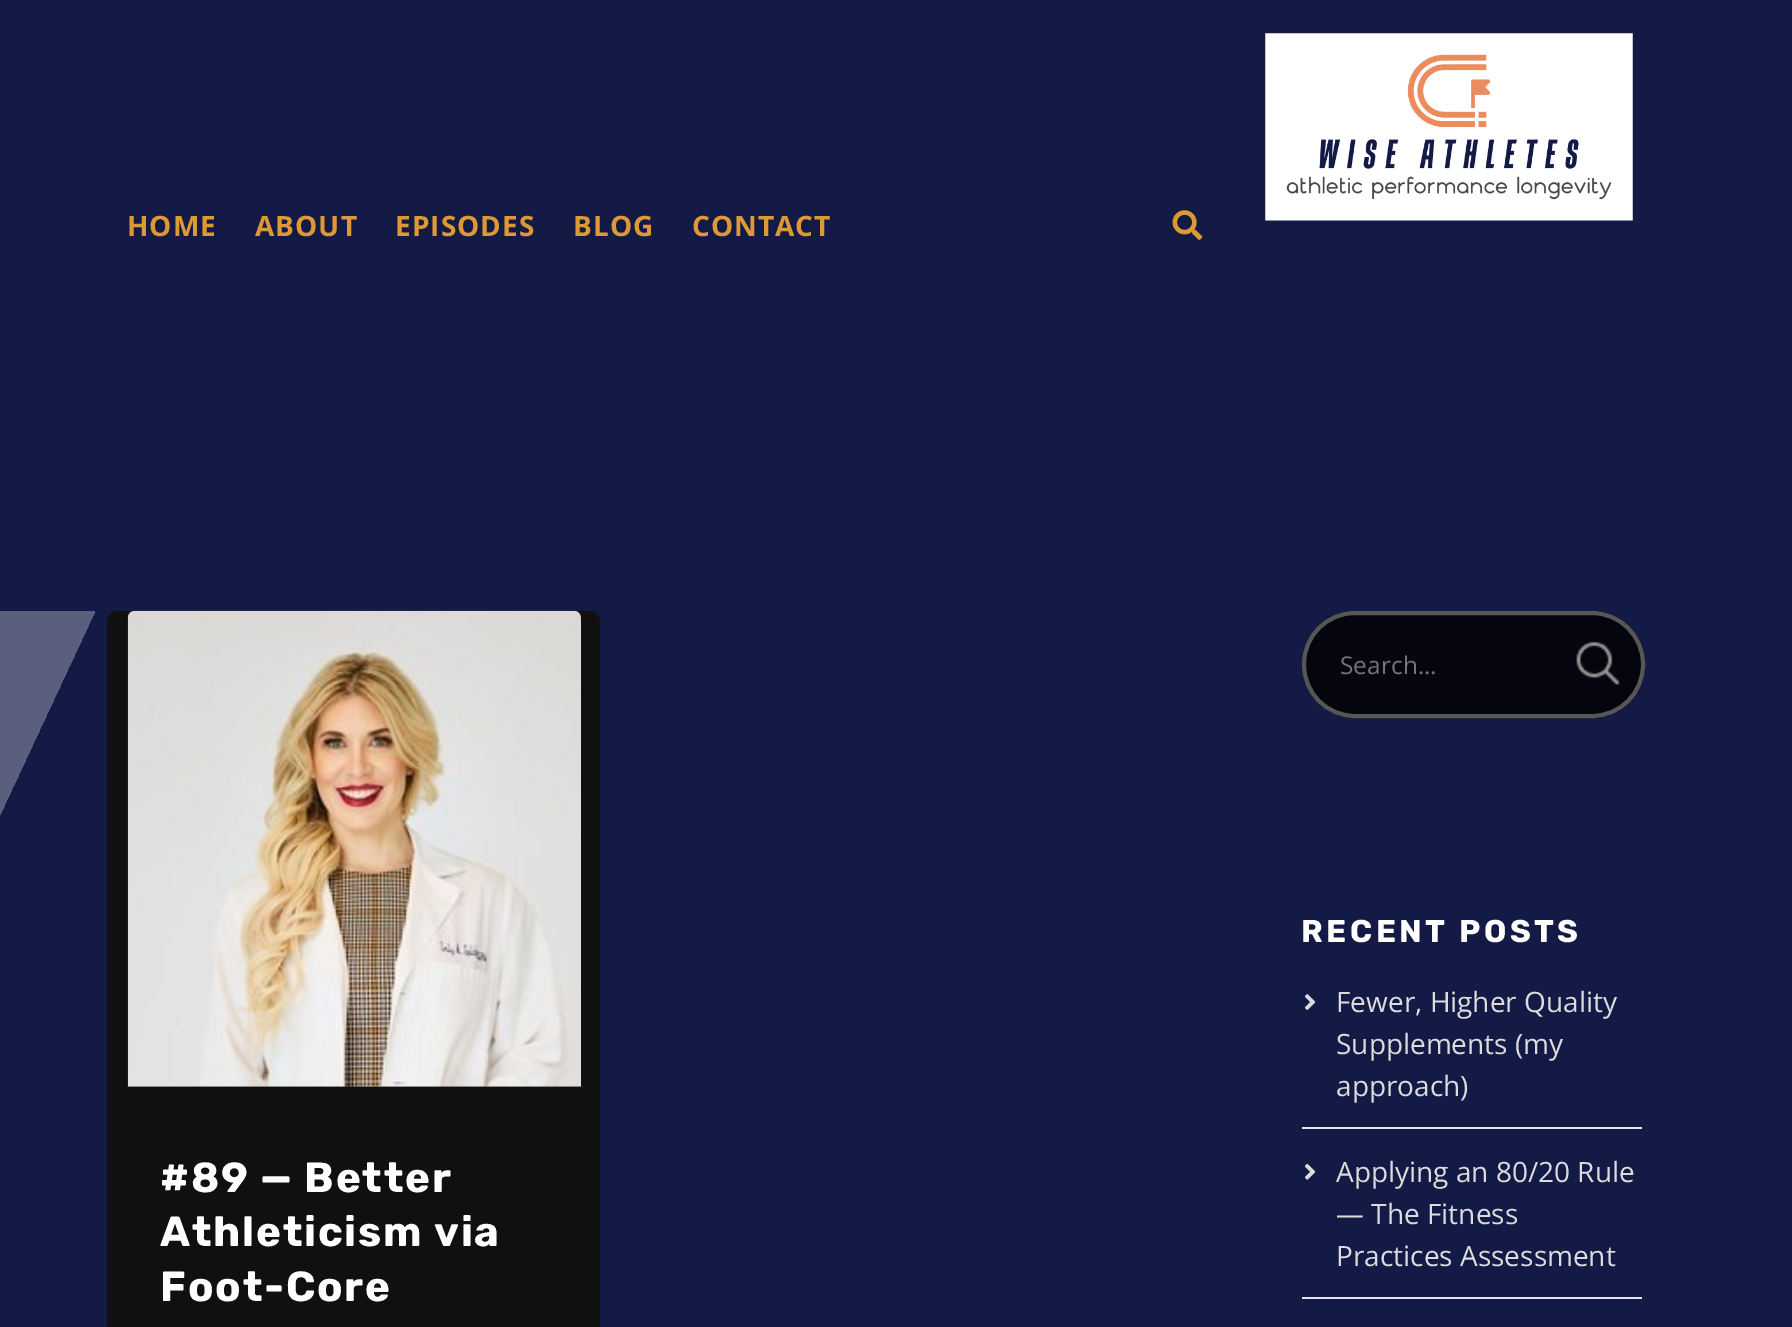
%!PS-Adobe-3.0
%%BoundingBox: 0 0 1792 1327
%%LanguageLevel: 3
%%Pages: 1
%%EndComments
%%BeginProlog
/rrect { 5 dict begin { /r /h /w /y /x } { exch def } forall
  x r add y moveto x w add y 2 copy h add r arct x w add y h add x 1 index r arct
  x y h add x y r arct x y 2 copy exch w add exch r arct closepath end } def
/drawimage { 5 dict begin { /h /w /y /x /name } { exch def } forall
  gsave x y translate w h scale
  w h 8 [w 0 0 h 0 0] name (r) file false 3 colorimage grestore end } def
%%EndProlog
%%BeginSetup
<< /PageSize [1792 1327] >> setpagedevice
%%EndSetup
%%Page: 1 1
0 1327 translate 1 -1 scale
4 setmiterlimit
0.078 0.102 0.275 setrgbcolor
0 0 1792 1327 rectfill
(images/1.raw) 1265 33 368 188 drawimage
(images/2.raw) 1172 210 31 30 drawimage
0.063 setgray
107 611 493 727 11 rrect fill
gsave newpath -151 611 moveto 95 611 lineto -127 1087 lineto -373 1087 lineto closepath clip newpath
<< /ShadingType 2 /ColorSpace /DeviceRGB /Coords [-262 849 -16 849] /Extend [true true] /Function << /FunctionType 2 /Domain [0 1] /C0 [0.078 0.102 0.275] /C1 [0.357 0.373 0.494] /N 1 >> >> shfill grestore
(images/3.raw) 127 610 454 477 drawimage
0.016 0.02 0.055 setrgbcolor
1302 611 343 107 53 rrect fill
(images/4.raw) 1576 641 44 44 drawimage
0.337 setgray
4 setlinewidth
1304 613 339 103 51 rrect stroke
0.898 setgray
1302 1127 340 2 rectfill
(images/5.raw) 1305 994 11 16 drawimage
1302 1297 340 2 rectfill
(images/6.raw) 1305 1163 11 17 drawimage
/OpenSans-Bold [28 0 0 -28 0 0] selectfont
0.867 0.6 0.2 setrgbcolor
127 236 moveto 1 0 (HOME) ashow
255 236 moveto 1 0 (ABOUT) ashow
395 236 moveto 1 0 (EPISODES) ashow
573 236 moveto 1 0 (BLOG) ashow
692 236 moveto 1 0 (CONTACT) ashow
/Rubik-Bold [42 0 0 -42 0 0] selectfont
1 setgray
160 1192 moveto 1.75 0 (#89 — Better) ashow
160 1246 moveto 1.75 0 (Athleticism via) ashow
160 1301 moveto 1.75 0 (Foot-Core) ashow
/OpenSans-Regular [24.5 0 0 -24.5 0 0] selectfont
0.459 setgray
1340 674 moveto (Search...) show
/Rubik-Bold [31.5 0 0 -31.5 0 0] selectfont
1 setgray
1301 942 moveto 3.5 0 (RECENT POSTS) ashow
/OpenSans-Regular [28 0 0 -28 0 0] selectfont
0.863 setgray
1336 1012 moveto (Fewer, Higher Quality) show
1336 1054 moveto (Supplements \(my) show
1336 1096 moveto (approach\)) show
1336 1182 moveto (Applying an 80/20 Rule) show
1336 1224 moveto (— The Fitness) show
1336 1266 moveto (Practices Assessment) show
showpage
%%EOF
